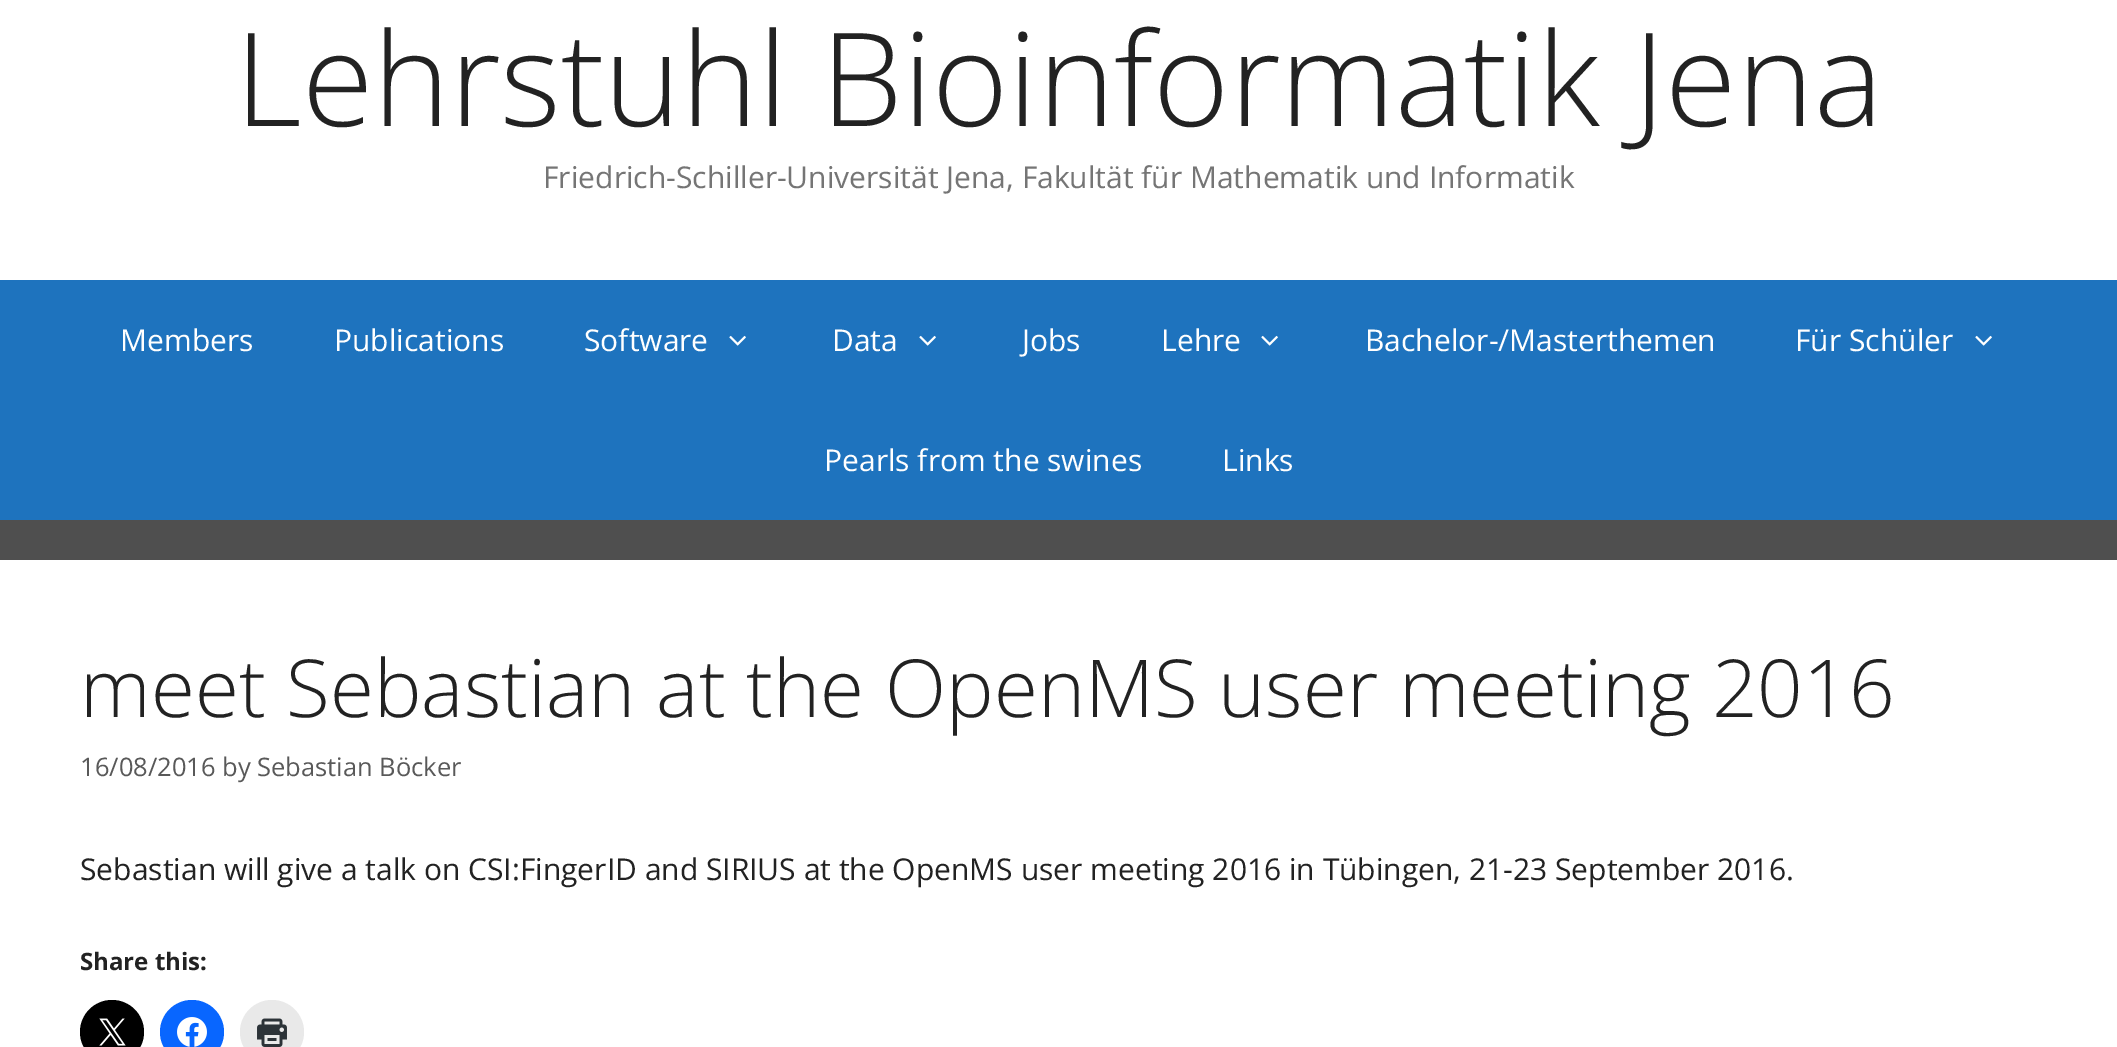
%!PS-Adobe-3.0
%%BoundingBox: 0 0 2117 1047
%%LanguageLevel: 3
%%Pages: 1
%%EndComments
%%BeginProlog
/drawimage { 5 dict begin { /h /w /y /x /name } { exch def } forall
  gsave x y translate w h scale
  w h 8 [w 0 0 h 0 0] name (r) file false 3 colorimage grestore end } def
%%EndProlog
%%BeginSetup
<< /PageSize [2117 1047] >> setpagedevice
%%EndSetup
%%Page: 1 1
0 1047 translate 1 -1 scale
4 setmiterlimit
0.31 setgray
0 0 2117 1047 rectfill
1 setgray
0 0 2117 280 rectfill
0.118 0.451 0.745 setrgbcolor
0 280 2117 240 rectfill
(images/1.raw) 729 335 17 11 drawimage
(images/1.raw) 919 335 17 11 drawimage
(images/1.raw) 1261 335 17 11 drawimage
(images/1.raw) 1975 335 17 11 drawimage
1 setgray
0 560 2117 487 rectfill
0 setgray
newpath 112 1032 32 0 360 arc closepath fill
(images/2.raw) 99 1018 27 28 drawimage
0.031 0.4 1 setrgbcolor
newpath 192 1032 32 0 360 arc closepath fill
(images/3.raw) 177 1017 30 30 drawimage
0.914 setgray
newpath 272 1032 32 0 360 arc closepath fill
(images/4.raw) 257 1018 30 29 drawimage
/OpenSans-Light [130 0 0 -130 0 0] selectfont
0.133 setgray
235 126 moveto (Lehrstuhl Bioinformatik Jena) show
/OpenSans-Regular [30 0 0 -30 0 0] selectfont
0.459 setgray
543 188 moveto (Friedrich-Schiller-Universität Jena, Fakultät für Mathematik und Informatik) show
1 setgray
120 351 moveto (Members) show
334 351 moveto (Publications) show
584 351 moveto (Software) show
832 351 moveto (Data) show
1022 351 moveto (Jobs) show
1161 351 moveto (Lehre) show
1365 351 moveto (Bachelor-/Masterthemen) show
1795 351 moveto (Für Schüler) show
824 471 moveto (Pearls from the swines) show
1222 471 moveto (Links) show
/OpenSans-Light [80 0 0 -80 0 0] selectfont
0.133 setgray
80 717 moveto (meet Sebastian at the OpenMS user meeting 2016) show
/OpenSans-Regular [25.5 0 0 -25.5 0 0] selectfont
0.349 setgray
80 776 moveto (16/08/2016 by Sebastian Böcker) show
/OpenSans-Regular [30 0 0 -30 0 0] selectfont
0.133 setgray
80 880 moveto (Sebastian will give a talk on CSI:FingerID and SIRIUS at the OpenMS user meeting 2016 in Tübingen, 21-23 September 2016.) show
/OpenSans-Bold [24 0 0 -24 0 0] selectfont
80 970 moveto (Share this:) show
showpage
%%EOF
